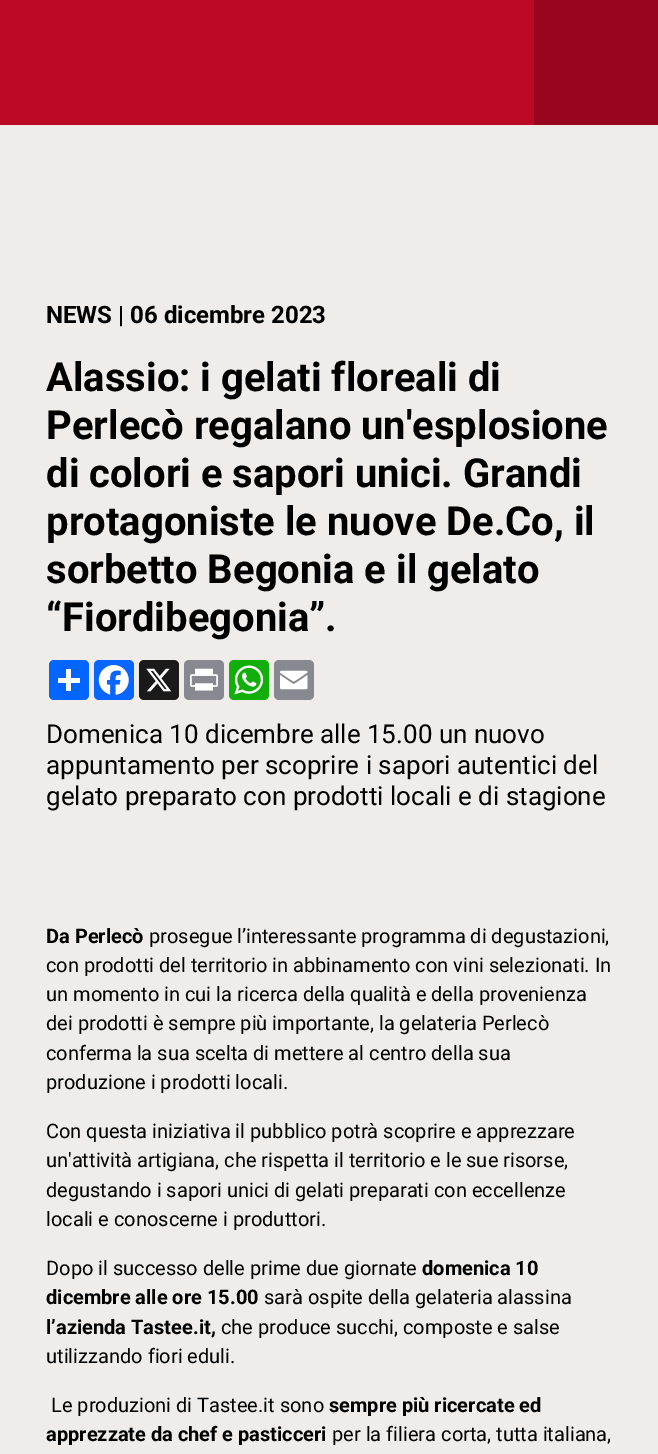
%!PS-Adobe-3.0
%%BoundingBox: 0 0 658 1454
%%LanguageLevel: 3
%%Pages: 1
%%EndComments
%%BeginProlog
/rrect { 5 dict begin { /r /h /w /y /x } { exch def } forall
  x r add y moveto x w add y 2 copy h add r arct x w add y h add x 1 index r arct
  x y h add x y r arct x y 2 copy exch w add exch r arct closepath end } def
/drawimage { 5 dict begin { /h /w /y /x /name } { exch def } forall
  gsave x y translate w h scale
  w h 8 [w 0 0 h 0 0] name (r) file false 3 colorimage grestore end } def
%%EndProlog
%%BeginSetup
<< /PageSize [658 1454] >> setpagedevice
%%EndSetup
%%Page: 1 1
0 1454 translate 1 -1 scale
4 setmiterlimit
0.937 0.925 0.914 setrgbcolor
0 0 658 1454 rectfill
0.741 0.031 0.145 setrgbcolor
0 0 534 125 rectfill
0.592 0.024 0.118 setrgbcolor
534 0 124 125 rectfill
0.004 0.4 1 setrgbcolor
49 660 40 40 5 rrect fill
1 setgray
66 669 5 22 rectfill
58 678 22 5 rectfill
0.031 0.4 1 setrgbcolor
94 660 40 40 5 rrect fill
(images/1.raw) 98 665 31 30 drawimage
0.102 setgray
139 660 40 40 5 rrect fill
(images/2.raw) 146 668 26 24 drawimage
0.533 0.537 0.565 setrgbcolor
184 660 40 40 5 rrect fill
(images/3.raw) 190 668 28 23 drawimage
0.071 0.686 0.039 setrgbcolor
229 660 40 40 5 rrect fill
(images/4.raw) 234 665 30 30 drawimage
0.533 0.537 0.565 setrgbcolor
274 660 40 40 5 rrect fill
(images/5.raw) 280 670 28 20 drawimage
/Roboto-Bold [24 0 0 -24 0 0] selectfont
0 setgray
46 323 moveto (NEWS | 06 dicembre 2023) show
/Roboto-Bold [40 0 0 -40 0 0] selectfont
46 391 moveto (Alassio: i gelati floreali di) show
46 439 moveto (Perlecò regalano un'esplosione) show
46 487 moveto (di colori e sapori unici. Grandi) show
46 535 moveto (protagoniste le nuove De.Co, il) show
46 583 moveto (sorbetto Begonia e il gelato) show
46 631 moveto (“Fiordibegonia”.) show
/Roboto-Regular [26 0 0 -26 0 0] selectfont
46 743 moveto (Domenica 10 dicembre alle 15.00 un nuovo) show
46 774 moveto (appuntamento per scoprire i sapori autentici del) show
46 805 moveto (gelato preparato con prodotti locali e di stagione) show
/Roboto-Bold [20 0 0 -20 0 0] selectfont
46 943 moveto (Da Perlecò) show
/Roboto-Regular [20 0 0 -20 0 0] selectfont
149 943 moveto (prosegue l’interessante programma di degustazioni,) show
46 972 moveto (con prodotti del territorio in abbinamento con vini selezionati. In) show
46 1001 moveto (un momento in cui la ricerca della qualità e della provenienza) show
46 1030 moveto (dei prodotti è sempre più importante, la gelateria Perlecò) show
46 1060 moveto (conferma la sua scelta di mettere al centro della sua) show
46 1089 moveto (produzione i prodotti locali.) show
46 1138 moveto (Con questa iniziativa il pubblico potrà scoprire e apprezzare) show
46 1167 moveto (un'attività artigiana, che rispetta il territorio e le sue risorse,) show
46 1197 moveto (degustando i sapori unici di gelati preparati con eccellenze) show
46 1226 moveto (locali e conoscerne i produttori.) show
46 1275 moveto (Dopo il successo delle prime due giornate) show
/Roboto-Bold [20 0 0 -20 0 0] selectfont
422 1275 moveto (domenica 10) show
46 1304 moveto (dicembre alle ore 15.00) show
/Roboto-Regular [20 0 0 -20 0 0] selectfont
264 1304 moveto (sarà ospite della gelateria alassina) show
/Roboto-Bold [20 0 0 -20 0 0] selectfont
46 1334 moveto (l’azienda Tastee.it,) show
/Roboto-Regular [20 0 0 -20 0 0] selectfont
221 1334 moveto (che produce succhi, composte e salse) show
46 1363 moveto (utilizzando fiori eduli.) show
51 1412 moveto (Le produzioni di Tastee.it sono) show
/Roboto-Bold [20 0 0 -20 0 0] selectfont
329 1412 moveto (sempre più ricercate ed) show
46 1441 moveto (apprezzate da chef e pasticceri) show
/Roboto-Regular [20 0 0 -20 0 0] selectfont
332 1441 moveto (per la filiera corta, tutta italiana,) show
showpage
%%EOF
